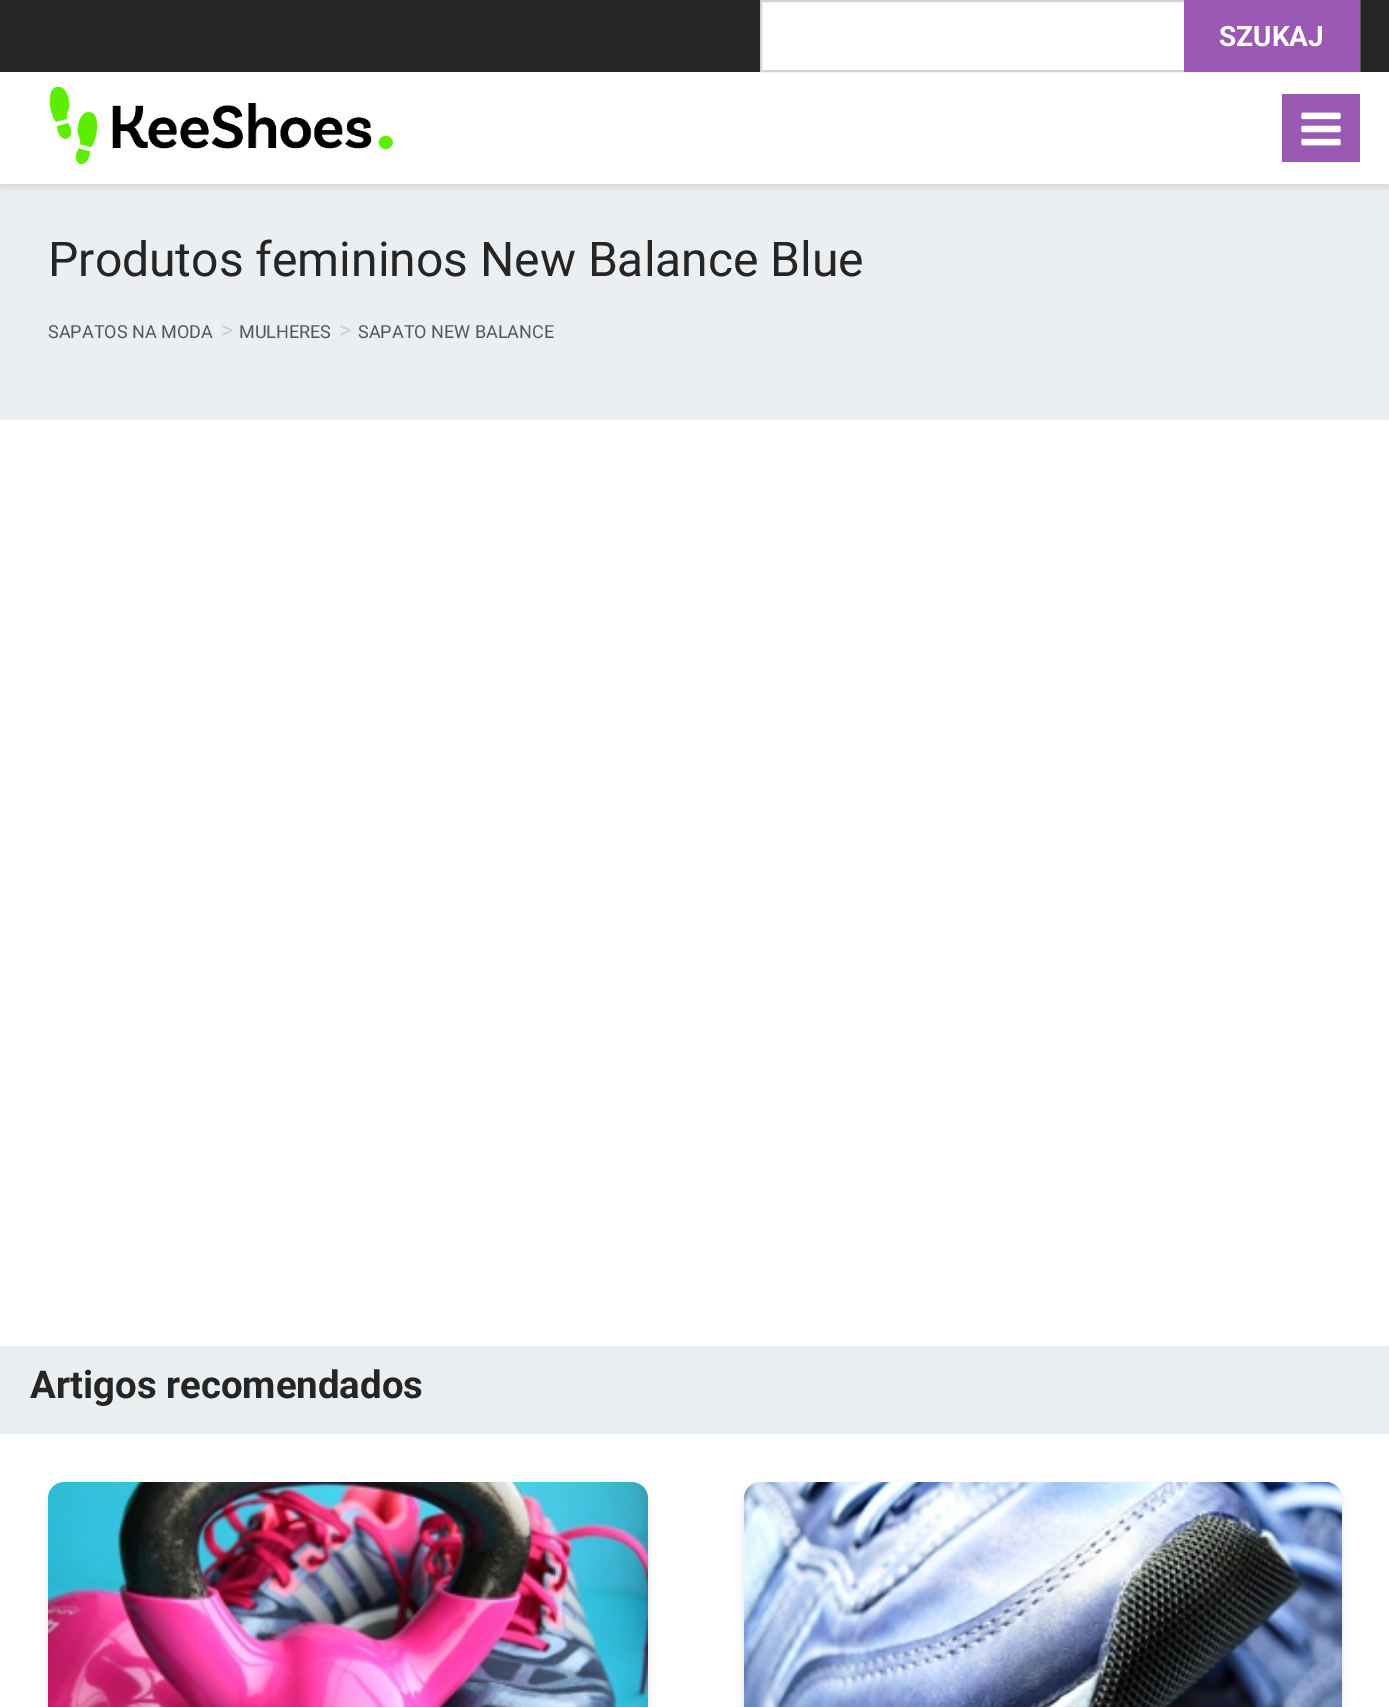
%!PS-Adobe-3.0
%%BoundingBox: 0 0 1389 1707
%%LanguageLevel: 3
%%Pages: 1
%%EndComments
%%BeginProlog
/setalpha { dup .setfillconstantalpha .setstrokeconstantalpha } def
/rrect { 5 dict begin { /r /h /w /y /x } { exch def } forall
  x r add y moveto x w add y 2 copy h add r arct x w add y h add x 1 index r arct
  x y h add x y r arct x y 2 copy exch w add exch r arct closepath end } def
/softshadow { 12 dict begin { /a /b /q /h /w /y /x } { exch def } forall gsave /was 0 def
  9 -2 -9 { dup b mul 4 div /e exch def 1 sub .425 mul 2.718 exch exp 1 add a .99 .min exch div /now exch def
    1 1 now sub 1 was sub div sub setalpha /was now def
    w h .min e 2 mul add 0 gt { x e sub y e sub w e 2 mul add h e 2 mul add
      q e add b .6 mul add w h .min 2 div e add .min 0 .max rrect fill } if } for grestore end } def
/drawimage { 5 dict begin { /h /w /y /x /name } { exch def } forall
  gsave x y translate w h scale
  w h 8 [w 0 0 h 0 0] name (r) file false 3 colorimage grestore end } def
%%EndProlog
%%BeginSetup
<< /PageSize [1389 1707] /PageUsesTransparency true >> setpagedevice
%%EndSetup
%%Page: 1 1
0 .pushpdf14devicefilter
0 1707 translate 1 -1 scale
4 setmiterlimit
1 setgray
0 0 1389 1707 rectfill
0.145 setgray
0 0 1389 72 rectfill
1 setgray
762 2 422 68 rectfill
0.808 0.831 0.855 setrgbcolor
2 setlinewidth
761 1 598 70 rectstroke
0.925 0.937 0.945 setrgbcolor
0 184 1389 236 rectfill
gsave
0 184 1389 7 rectclip
0 setgray
0 76 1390 112 0 4 0.1 softshadow
grestore
0.608 0.349 0.714 setrgbcolor
1184 0 176 72 rectfill
(images/1.raw) 49 87 344 78 drawimage
1282 94 78 68 rectfill
(images/2.raw) 1301 112 40 34 drawimage
0.925 0.937 0.945 setrgbcolor
0 1346 1389 88 rectfill
0 setgray
48 1486 600 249 16 4 0.1 softshadow
1 setgray
48 1482 600 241 16 rrect fill
(images/3.raw) 48 1482 600 225 drawimage
0 setgray
744 1486 598 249 16 4 0.1 softshadow
1 setgray
744 1482 598 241 16 rrect fill
(images/4.raw) 744 1482 598 225 drawimage
/Roboto-Bold [28 0 0 -28 0 0] selectfont
1219 46 moveto (SZUKAJ) show
/Roboto-Regular [48 0 0 -48 0 0] selectfont
0.145 setgray
48 276 moveto (Produtos femininos New Balance Blue) show
/Roboto-Regular [18 0 0 -18 0 0] selectfont
0.337 setgray
48 338 moveto (SAPATOS NA MODA) show
/Roboto-Regular [24 0 0 -24 0 0] selectfont
0.8 setgray
221 338 moveto (>) show
/Roboto-Regular [18 0 0 -18 0 0] selectfont
0.337 setgray
239 338 moveto (MULHERES) show
/Roboto-Regular [24 0 0 -24 0 0] selectfont
0.8 setgray
339 338 moveto (>) show
/Roboto-Regular [18 0 0 -18 0 0] selectfont
0.337 setgray
358 338 moveto (SAPATO NEW BALANCE) show
/Roboto-Bold [38.4 0 0 -38.4 0 0] selectfont
0.145 setgray
30 1398 moveto (Artigos recomendados) show
.poppdf14devicefilter showpage
%%EOF
